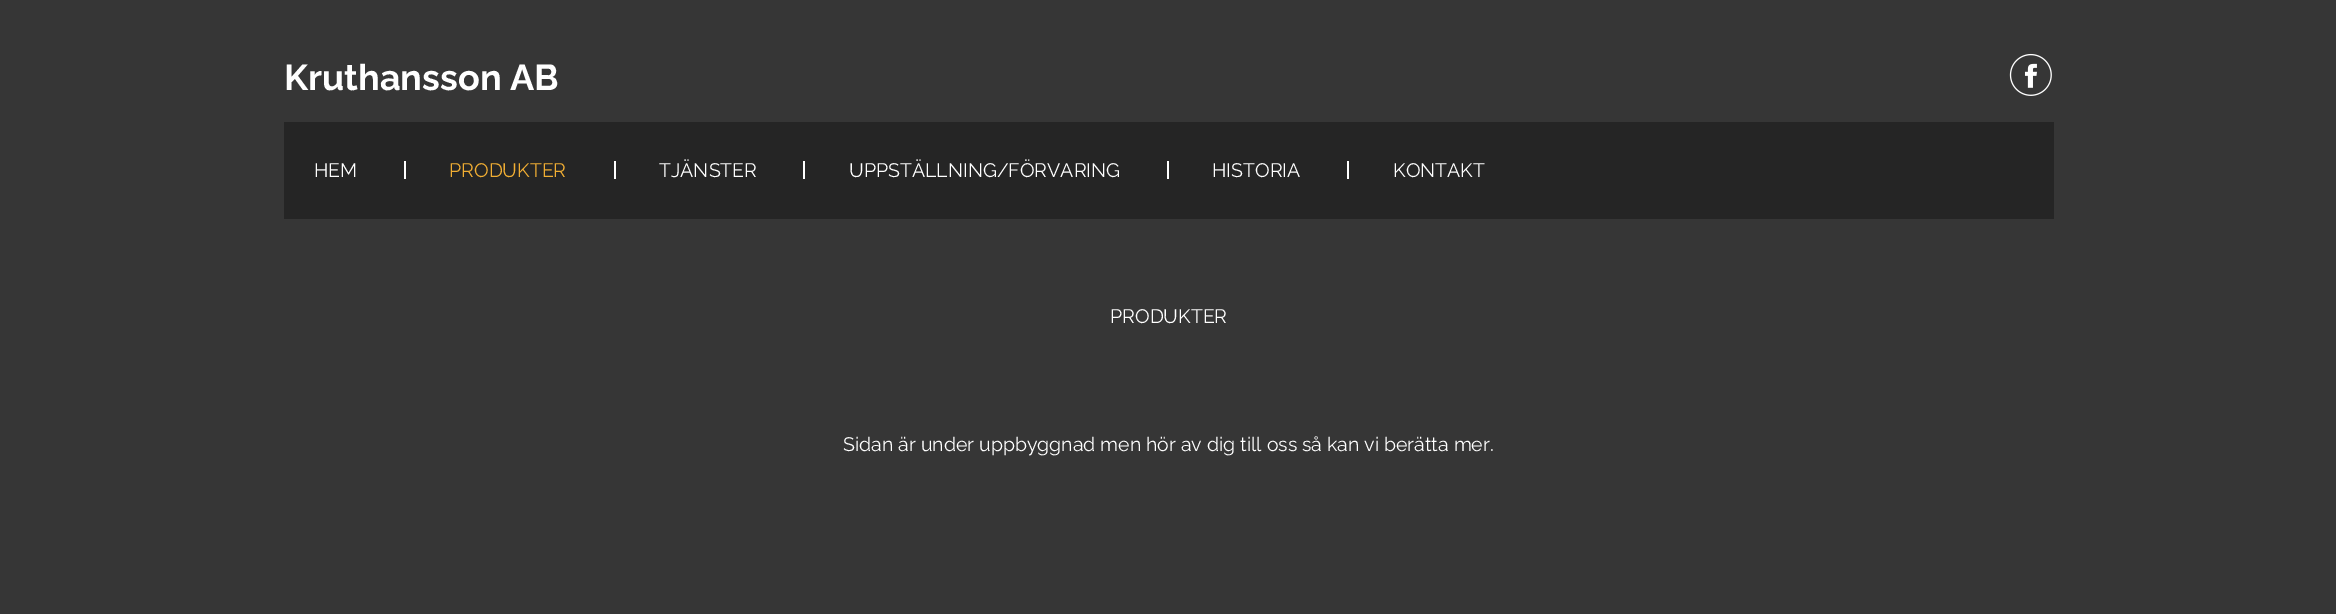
%!PS-Adobe-3.0
%%BoundingBox: 0 0 2336 614
%%LanguageLevel: 3
%%Pages: 1
%%EndComments
%%BeginProlog
/drawimage { 5 dict begin { /h /w /y /x /name } { exch def } forall
  gsave x y translate w h scale
  w h 8 [w 0 0 h 0 0] name (r) file false 3 colorimage grestore end } def
%%EndProlog
%%BeginSetup
<< /PageSize [2336 614] >> setpagedevice
%%EndSetup
%%Page: 1 1
0 614 translate 1 -1 scale
4 setmiterlimit
0.212 setgray
0 0 2336 614 rectfill
(images/1.raw) 2009 53 43 43 drawimage
0.145 setgray
284 122 1770 97 rectfill
1 setgray
404 161 2 18 rectfill
614 161 2 18 rectfill
803 161 2 18 rectfill
1167 161 2 18 rectfill
1347 161 2 18 rectfill
/Raleway-Bold [36 0 0 -36 0 0] selectfont
284 90 moveto (Kruthansson AB) show
/Raleway-Regular [19.5 0 0 -19.5 0 0] selectfont
314 177 moveto (HEM) show
0.945 0.682 0.2 setrgbcolor
449 177 moveto (PRODUKTER) show
1 setgray
659 177 moveto (TJÄNSTER) show
849 177 moveto (UPPSTÄLLNING/FÖRVARING) show
1212 177 moveto (HISTORIA) show
1393 177 moveto (KONTAKT) show
1110 323 moveto (PRODUKTER) show
843 451 moveto (Sidan är under uppbyggnad men hör av dig till oss så kan vi berätta mer.) show
showpage
%%EOF
